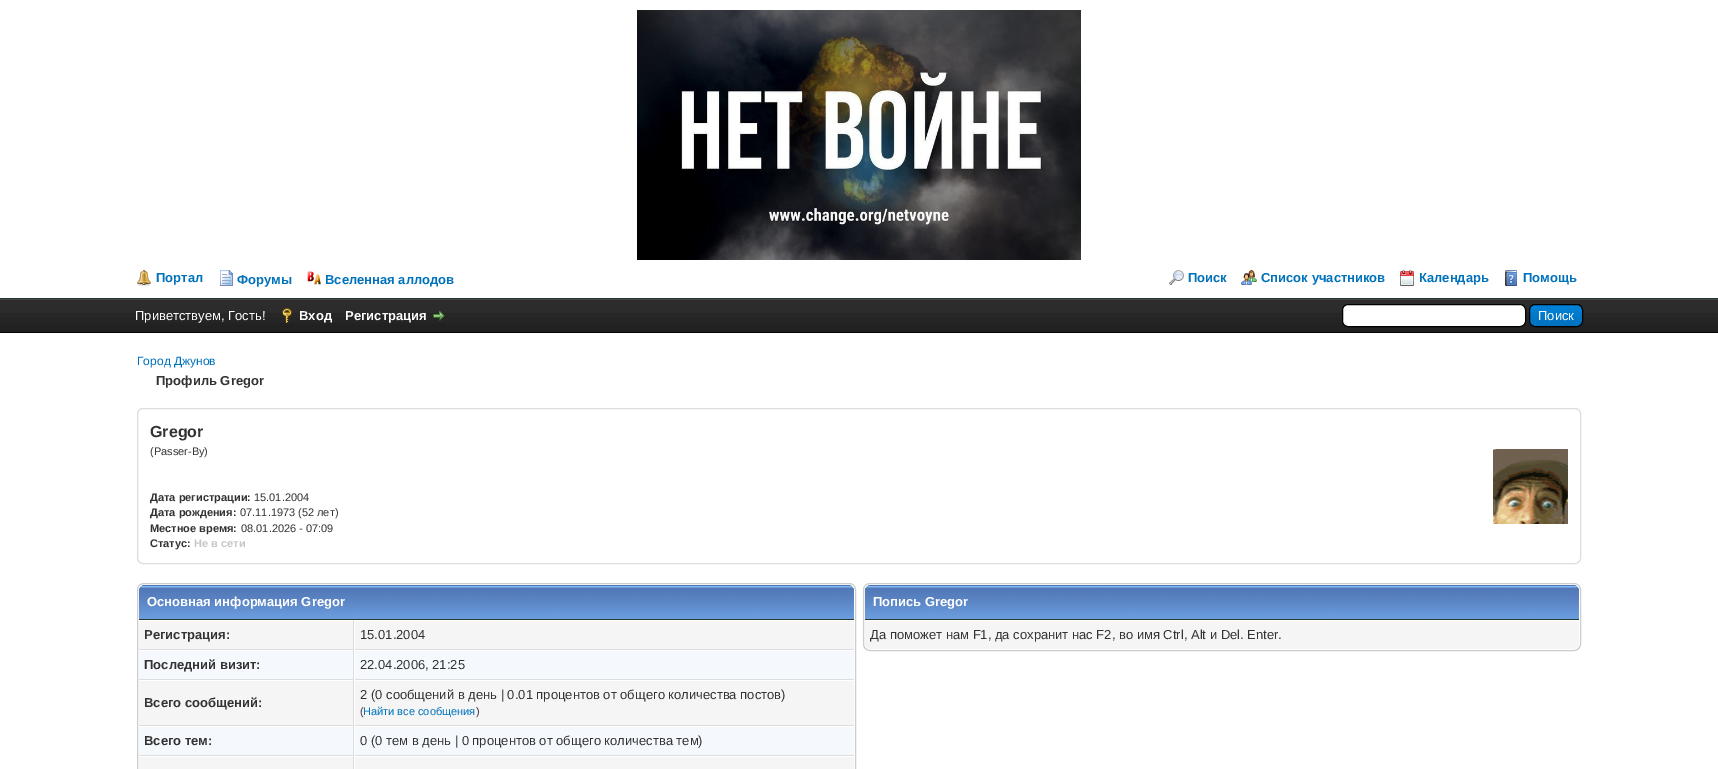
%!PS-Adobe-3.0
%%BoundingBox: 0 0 1718 769
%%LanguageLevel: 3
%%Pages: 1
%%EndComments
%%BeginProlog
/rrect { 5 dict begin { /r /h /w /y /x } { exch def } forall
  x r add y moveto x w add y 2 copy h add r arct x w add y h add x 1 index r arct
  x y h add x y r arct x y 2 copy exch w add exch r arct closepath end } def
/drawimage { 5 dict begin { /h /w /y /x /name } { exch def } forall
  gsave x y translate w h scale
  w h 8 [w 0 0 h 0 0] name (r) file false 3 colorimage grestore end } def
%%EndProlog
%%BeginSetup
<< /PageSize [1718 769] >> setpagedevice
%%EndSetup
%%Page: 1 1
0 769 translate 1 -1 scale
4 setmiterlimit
1 setgray
0 0 1718 769 rectfill
0.149 0.235 0.188 setrgbcolor
0 298 1718 1 rectfill
(images/1.raw) 637 10 444 250 drawimage
(images/2.raw) 137 270 14 16 drawimage
(images/3.raw) 220 270 13 16 drawimage
(images/4.raw) 307 271 14 14 drawimage
(images/5.raw) 1169 270 15 15 drawimage
(images/6.raw) 1241 270 16 15 drawimage
(images/7.raw) 1400 270 14 16 drawimage
(images/8.raw) 1505 270 12 16 drawimage
(images/9.raw) 0 300 1718 32 drawimage
0.267 setgray
0 299 1718 1 rectfill
0 setgray
0 332 1718 1 rectfill
(images/10.raw) 282 308 10 15 drawimage
(images/11.raw) 433 311 12 10 drawimage
1 setgray
1342.5 304.5 183 22 5.5 rrect gsave fill grestore
0 setgray
stroke
(images/12.raw) 1529 305 54 22 drawimage
1529.5 304.5 53 22 5.5 rrect stroke
0.867 setgray
137.5 408.5 1443 155 5.5 rrect stroke
(images/13.raw) 1493 449 75 75 drawimage
0.8 setgray
137.5 583.5 718 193 6.5 rrect stroke
(images/14.raw) 139 585 715 34 drawimage
0.149 0.235 0.188 setrgbcolor
139 619 715 1 rectfill
0.961 setgray
139 621 214 28 rectfill
0.867 setgray
353 620 1 136 rectfill
139 649 715 1 rectfill
0.961 setgray
355 621 499 28 rectfill
1 setgray
354 649 1 1 rectfill
0.961 0.976 0.992 setrgbcolor
139 651 214 28 rectfill
0.867 setgray
139 679 715 1 rectfill
0.961 0.976 0.992 setrgbcolor
355 651 499 28 rectfill
1 setgray
354 679 1 1 rectfill
0.961 setgray
139 681 214 44 rectfill
0.867 setgray
139 725 715 1 rectfill
0.961 setgray
355 681 499 44 rectfill
1 setgray
354 725 1 1 rectfill
0.961 0.976 0.992 setrgbcolor
139 727 214 28 rectfill
0.867 setgray
139 755 715 1 rectfill
0.961 0.976 0.992 setrgbcolor
355 727 499 28 rectfill
1 setgray
354 755 1 1 rectfill
0.961 setgray
139 756 215 13 rectfill
1 setgray
newpath 139 756 moveto 139 757 lineto 353 757 lineto 354 756 lineto closepath fill
0.867 setgray
newpath 354 756 moveto 353 757 lineto 353 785 lineto 354 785 lineto closepath fill
0.961 setgray
355 757 499 12 rectfill
0.8 setgray
863.5 583.5 717 67 6.5 rrect stroke
(images/15.raw) 865 585 714 34 drawimage
0.149 0.235 0.188 setrgbcolor
865 619 714 1 rectfill
0.961 setgray
newpath 865 620 moveto 1579 620 lineto 1579 643 lineto 1579 646.5 1576.5 649 1573 649 curveto 871 649 lineto 867.5 649 865 646.5 865 643 curveto closepath fill
1 setgray
865 620 714 1 rectfill
/LiberationSans-Bold [13 0 0 -13 0 0] selectfont
0 0.447 0.737 setrgbcolor
156 282 moveto (Портал) show
237 284 moveto (Форумы) show
325 284 moveto (Вселенная аллодов) show
1188 282 moveto (Поиск) show
1261 282 moveto (Список участников) show
1419 282 moveto (Календарь) show
1523 282 moveto (Помощь) show
/LiberationSans-Regular [13 0 0 -13 0 0] selectfont
1 setgray
135 320 moveto (Приветствуем, Гость!) show
/LiberationSans-Bold [13 0 0 -13 0 0] selectfont
299 320 moveto (Вход) show
345 320 moveto (Регистрация) show
/LiberationSans-Regular [13 0 0 -13 0 0] selectfont
1538 320 moveto (Поиск) show
/LiberationSans-Regular [12 0 0 -12 0 0] selectfont
0 0.447 0.737 setrgbcolor
137 365 moveto (Город Джунов) show
/LiberationSans-Bold [13 0 0 -13 0 0] selectfont
0.2 setgray
156 385 moveto (Профиль Gregor) show
/LiberationSans-Bold [16 0 0 -16 0 0] selectfont
150 437 moveto (Gregor) show
/LiberationSans-Regular [11 0 0 -11 0 0] selectfont
150 455 moveto (\(Passer-By\)) show
/LiberationSans-Bold [11 0 0 -11 0 0] selectfont
150 501 moveto (Дата регистрации:) show
/LiberationSans-Regular [11 0 0 -11 0 0] selectfont
254 501 moveto (15.01.2004) show
/LiberationSans-Bold [11 0 0 -11 0 0] selectfont
150 516 moveto (Дата рождения:) show
/LiberationSans-Regular [11 0 0 -11 0 0] selectfont
240 516 moveto (07.11.1973 \(52 лет\)) show
/LiberationSans-Bold [11 0 0 -11 0 0] selectfont
150 532 moveto (Местное время:) show
/LiberationSans-Regular [11 0 0 -11 0 0] selectfont
241 532 moveto (08.01.2026 - 07:09) show
/LiberationSans-Bold [11 0 0 -11 0 0] selectfont
150 547 moveto (Статус:) show
0.78 setgray
194 547 moveto (Не в сети) show
/LiberationSans-Bold [13 0 0 -13 0 0] selectfont
1 setgray
147 606 moveto (Основная информация Gregor) show
0.2 setgray
144 639 moveto (Регистрация:) show
/LiberationSans-Regular [13 0 0 -13 0 0] selectfont
360 639 moveto (15.01.2004) show
/LiberationSans-Bold [13 0 0 -13 0 0] selectfont
144 669 moveto (Последний визит:) show
/LiberationSans-Regular [13 0 0 -13 0 0] selectfont
360 669 moveto (22.04.2006, 21:25) show
/LiberationSans-Bold [13 0 0 -13 0 0] selectfont
144 707 moveto (Всего сообщений:) show
/LiberationSans-Regular [13 0 0 -13 0 0] selectfont
360 699 moveto (2 \(0 сообщений в день | 0.01 процентов от общего количества постов\)) show
/LiberationSans-Regular [11 0 0 -11 0 0] selectfont
360 715 moveto (\() show
0 0.447 0.737 setrgbcolor
363 715 moveto (Найти все сообщения) show
0.2 setgray
476 715 moveto (\)) show
/LiberationSans-Bold [13 0 0 -13 0 0] selectfont
144 745 moveto (Всего тем:) show
/LiberationSans-Regular [13 0 0 -13 0 0] selectfont
360 745 moveto (0 \(0 тем в день | 0 процентов от общего количества тем\)) show
/LiberationSans-Bold [13 0 0 -13 0 0] selectfont
1 setgray
873 606 moveto (Попись Gregor) show
/LiberationSans-Regular [13 0 0 -13 0 0] selectfont
0.2 setgray
870 639 moveto (Да поможет нам F1, да сохранит нас F2, во имя Ctrl, Alt и Del. Enter.) show
showpage
%%EOF
